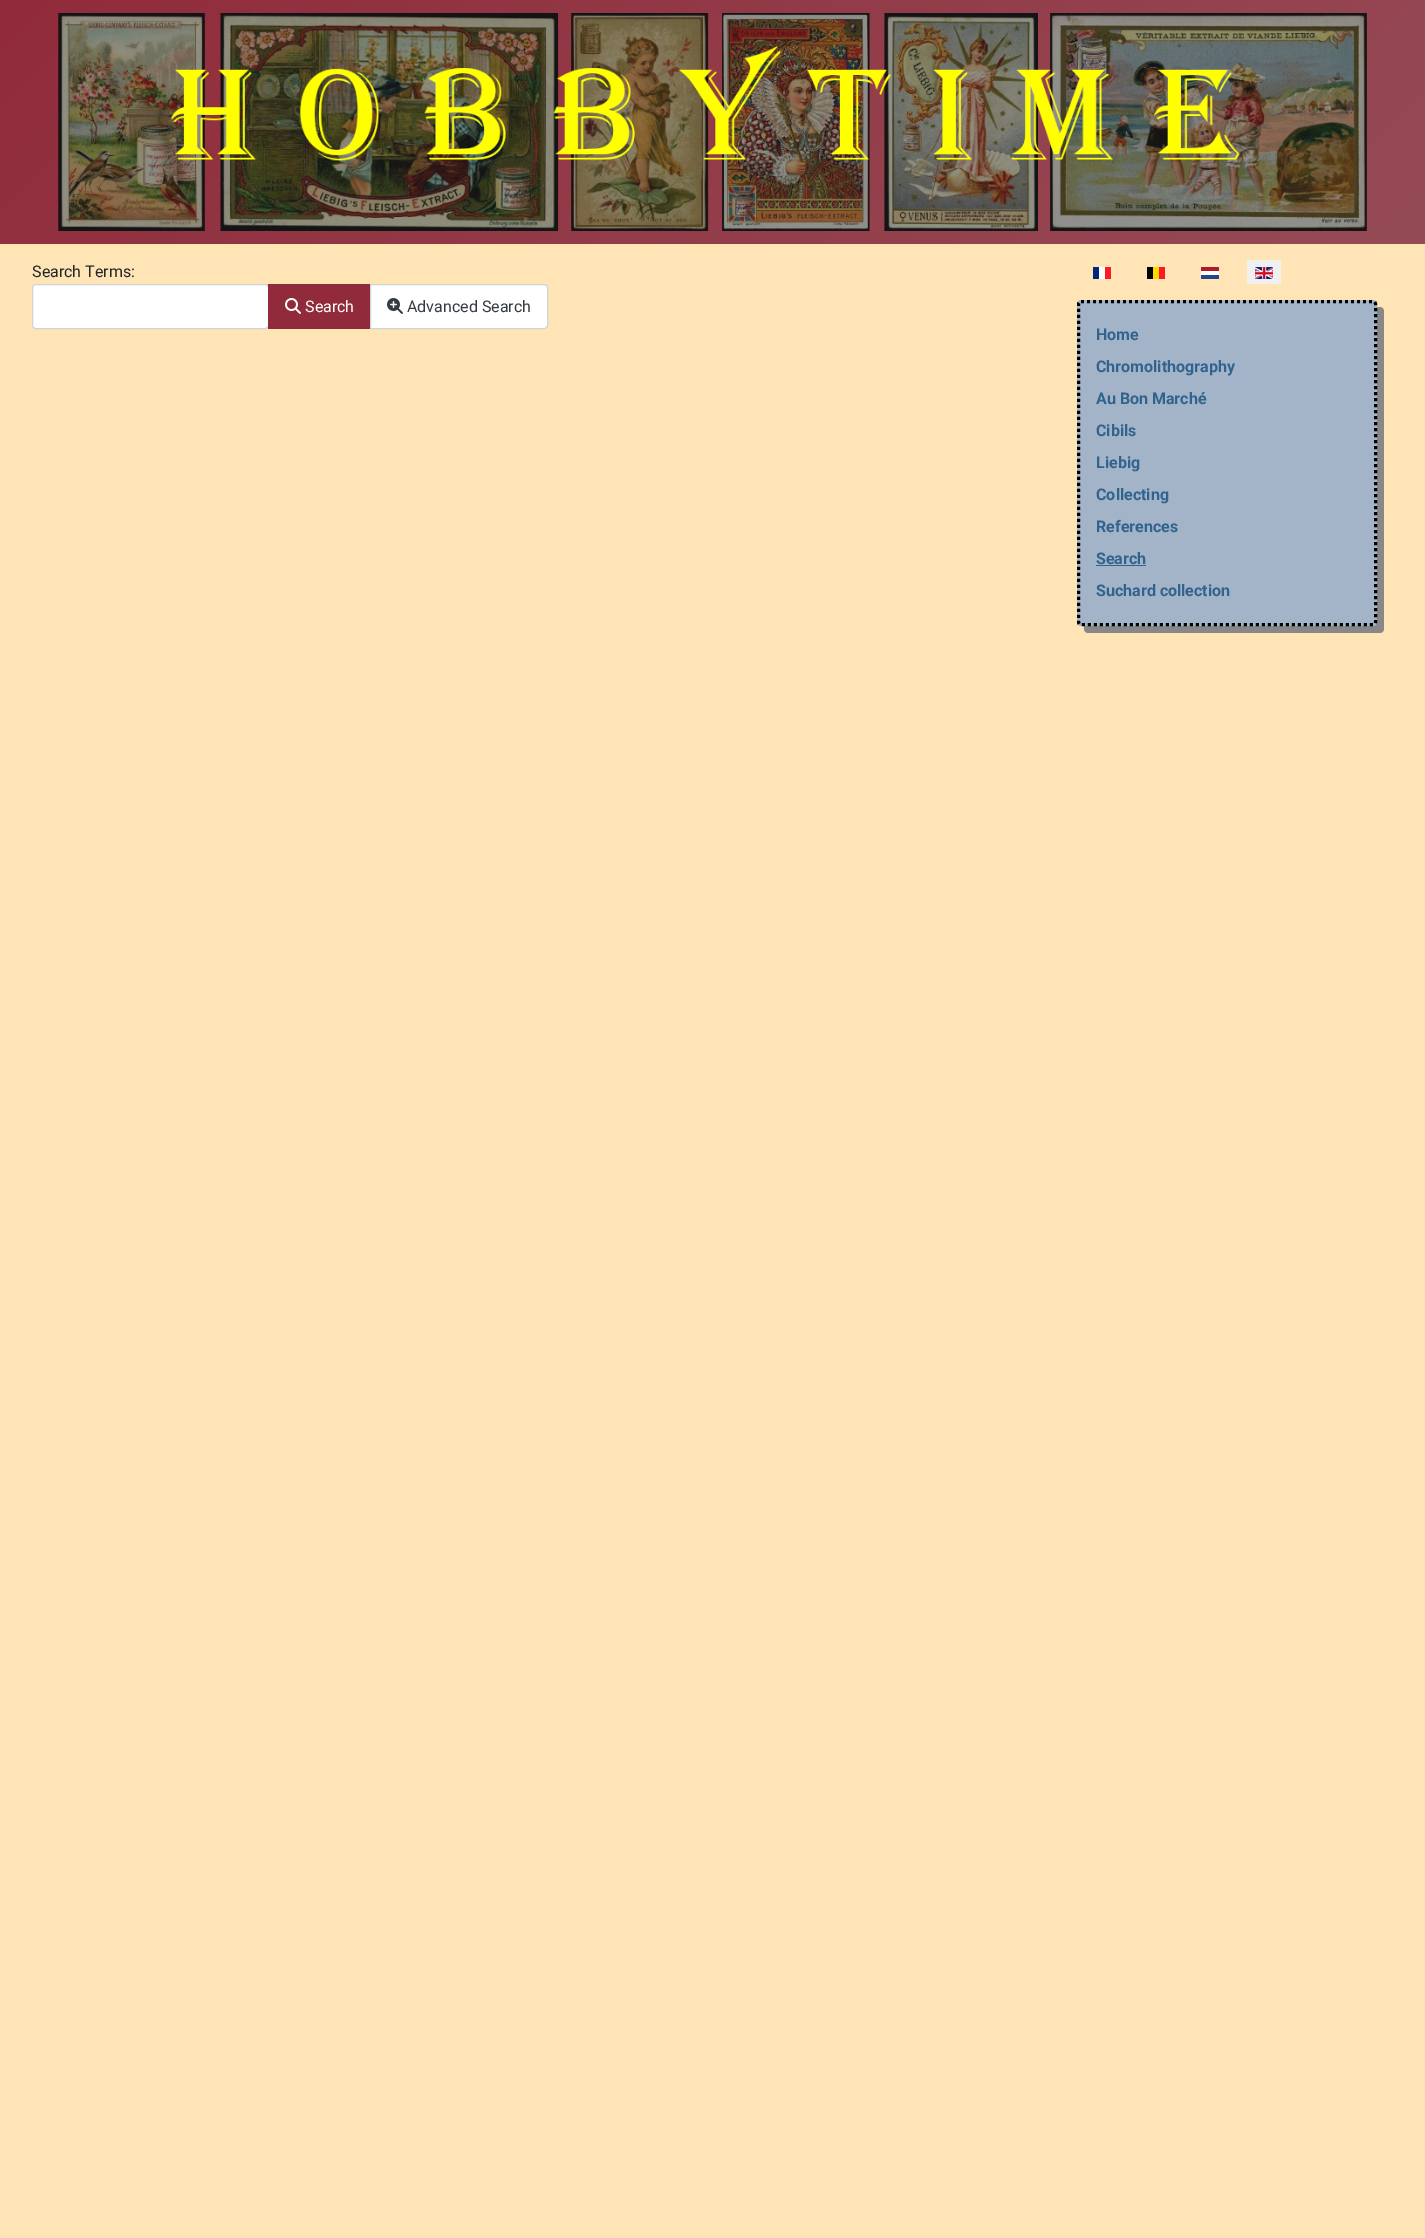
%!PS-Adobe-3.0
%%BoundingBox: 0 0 1425 2238
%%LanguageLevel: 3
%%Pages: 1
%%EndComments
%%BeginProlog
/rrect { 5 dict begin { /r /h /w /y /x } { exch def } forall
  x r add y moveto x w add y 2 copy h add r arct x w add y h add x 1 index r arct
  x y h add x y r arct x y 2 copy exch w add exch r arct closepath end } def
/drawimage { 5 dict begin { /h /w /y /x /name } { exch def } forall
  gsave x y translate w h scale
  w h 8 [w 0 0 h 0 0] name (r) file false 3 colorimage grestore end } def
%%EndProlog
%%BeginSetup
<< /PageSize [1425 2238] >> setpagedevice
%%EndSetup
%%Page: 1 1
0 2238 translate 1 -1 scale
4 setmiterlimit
1 0.894 0.71 setrgbcolor
0 0 1425 2238 rectfill
gsave newpath 0 0 moveto 1425 0 lineto 1425 244 lineto 0 244 lineto closepath clip newpath
<< /ShadingType 2 /ColorSpace /DeviceRGB /Coords [295 -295 1130 539] /Extend [true true] /Function << /FunctionType 2 /Domain [0 1] /C0 [0.569 0.169 0.231] /C1 [0.584 0.294 0.337] /N 1 >> >> shfill grestore
(images/1.raw) 58 13 1309 218 drawimage
1 setgray
32.5 284.5 236 44 3.5 rrect gsave fill grestore
0.808 0.831 0.855 setrgbcolor
stroke
0.569 0.169 0.231 setrgbcolor
268 284 102 45 rectfill
(images/2.raw) 285 298 16 16 drawimage
1 setgray
newpath 370.5 284.5 moveto 544 284.5 lineto 546 284.5 547.5 286 547.5 288 curveto 547.5 325 lineto 547.5 327 546 328.5 544 328.5 curveto 370.5 328.5 lineto closepath gsave fill grestore
0.808 0.831 0.855 setrgbcolor
stroke
(images/3.raw) 387 298 16 16 drawimage
(images/4.raw) 1093 267 18 12 drawimage
(images/5.raw) 1147 267 18 12 drawimage
(images/6.raw) 1201 267 18 12 drawimage
0.941 setgray
1247 260 34 24 rectfill
(images/7.raw) 1255 267 18 12 drawimage
0.533 setgray
newpath 1084 626 moveto 1084 629 lineto 1084 631 1086 633 1088 633 curveto 1380 633 lineto 1382 633 1384 631 1384 629 curveto 1384 311 lineto 1384 309 1382 307 1380 307 curveto 1377 307 lineto 1377 622 lineto 1377 624 1375 626 1373 626 curveto closepath fill
0.639 0.706 0.784 setrgbcolor
1077 300 300 326 4 rrect fill
0 setgray
3 setlinewidth
[3 3] 0 setdash
newpath 1081 301.5 moveto 1373 301.5 lineto 1374.5 301.5 1375.5 302.5 1375.5 304 curveto 1375.5 622 lineto 1375.5 623.5 1374.5 624.5 1373 624.5 curveto 1081 624.5 lineto 1079.5 624.5 1078.5 623.5 1078.5 622 curveto 1078.5 304 lineto 1078.5 302.5 1079.5 301.5 1081 301.5 curveto closepath stroke
0.188 0.388 0.553 setrgbcolor
1096 565 50 1 rectfill
/Roboto-Regular [16 0 0 -16 0 0] selectfont
0.133 0.149 0.165 setrgbcolor
32 277 moveto (Search Terms:) show
1 setgray
305 312 moveto (Search) show
0.208 0.231 0.255 setrgbcolor
407 312 moveto (Advanced Search) show
/Roboto-Bold [16 0 0 -16 0 0] selectfont
0.188 0.388 0.553 setrgbcolor
1096 340 moveto (Home) show
1096 372 moveto (Chromolithography) show
1096 404 moveto (Au Bon Marché) show
1096 436 moveto (Cibils) show
1096 468 moveto (Liebig) show
1096 500 moveto (Collecting) show
1096 532 moveto (References) show
1096 564 moveto (Search) show
1096 596 moveto (Suchard collection) show
showpage
%%EOF
